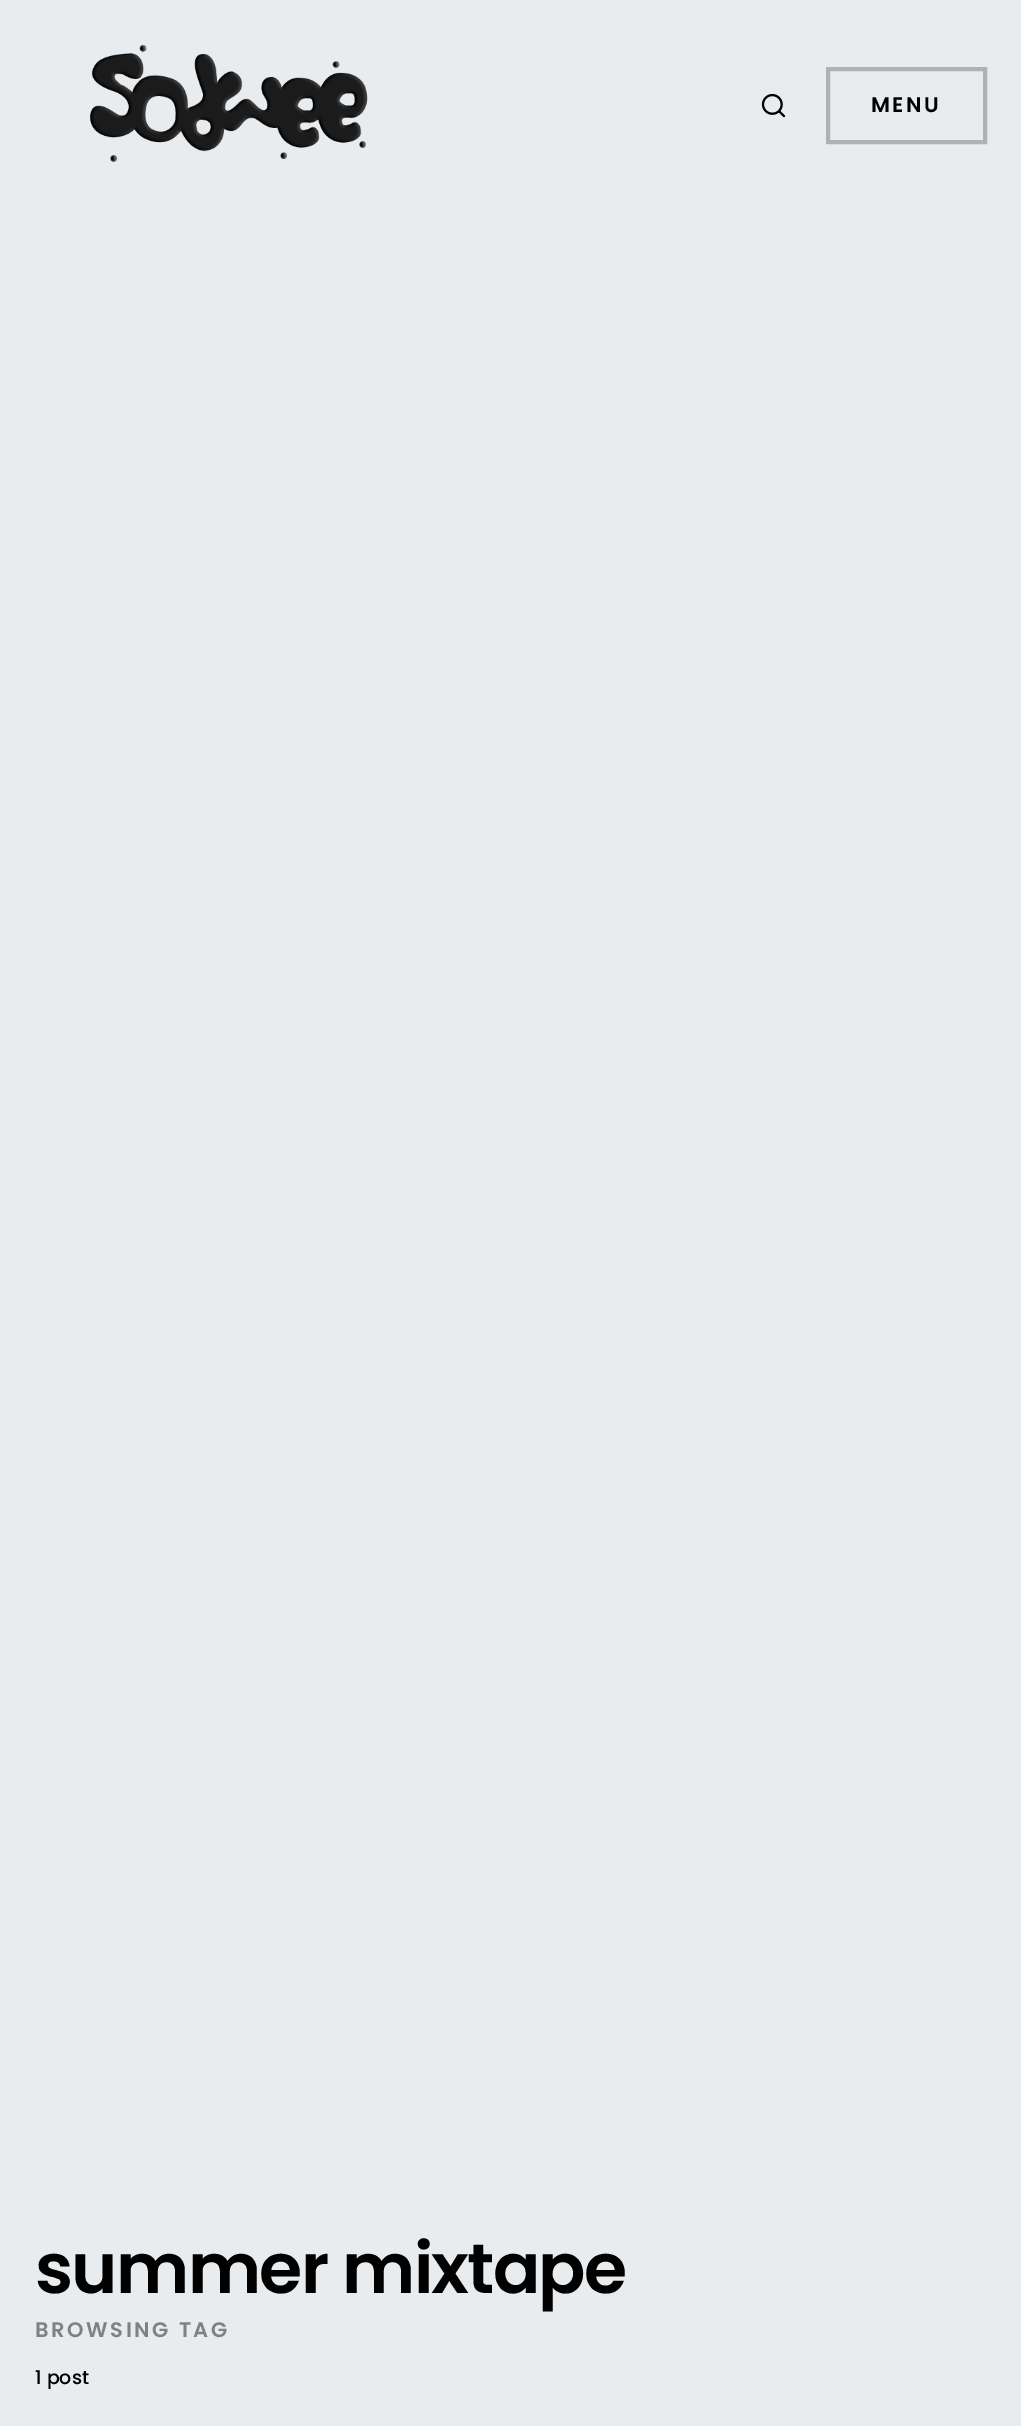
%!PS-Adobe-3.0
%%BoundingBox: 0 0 1021 2426
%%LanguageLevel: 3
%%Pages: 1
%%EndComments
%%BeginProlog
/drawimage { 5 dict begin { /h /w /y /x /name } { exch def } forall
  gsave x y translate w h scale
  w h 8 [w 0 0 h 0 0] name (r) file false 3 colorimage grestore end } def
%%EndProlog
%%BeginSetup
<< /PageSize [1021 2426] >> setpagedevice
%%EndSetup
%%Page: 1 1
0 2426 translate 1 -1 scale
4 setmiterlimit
0.914 0.925 0.937 setrgbcolor
0 0 1021 2426 rectfill
(images/1.raw) 89 44 279 118 drawimage
(images/2.raw) 761 93 25 25 drawimage
0.686 0.694 0.702 setrgbcolor
4 setlinewidth
828 69 157 73 rectstroke
/Poppins-SemiBold [21 0 0 -21 0 0] selectfont
0 setgray
871 112 moveto 2.6 0 (MENU) ashow
/Poppins-SemiBold [70 0 0 -70 0 0] selectfont
35 2293 moveto -1.75 0 (summer mixtape) ashow
/Poppins-SemiBold [21 0 0 -21 0 0] selectfont
0.506 setgray
35 2337 moveto 2.6 0 (BROWSING TAG) ashow
/Poppins-Medium [19 0 0 -19 0 0] selectfont
0 setgray
35 2384 moveto (1 post) show
showpage
%%EOF
